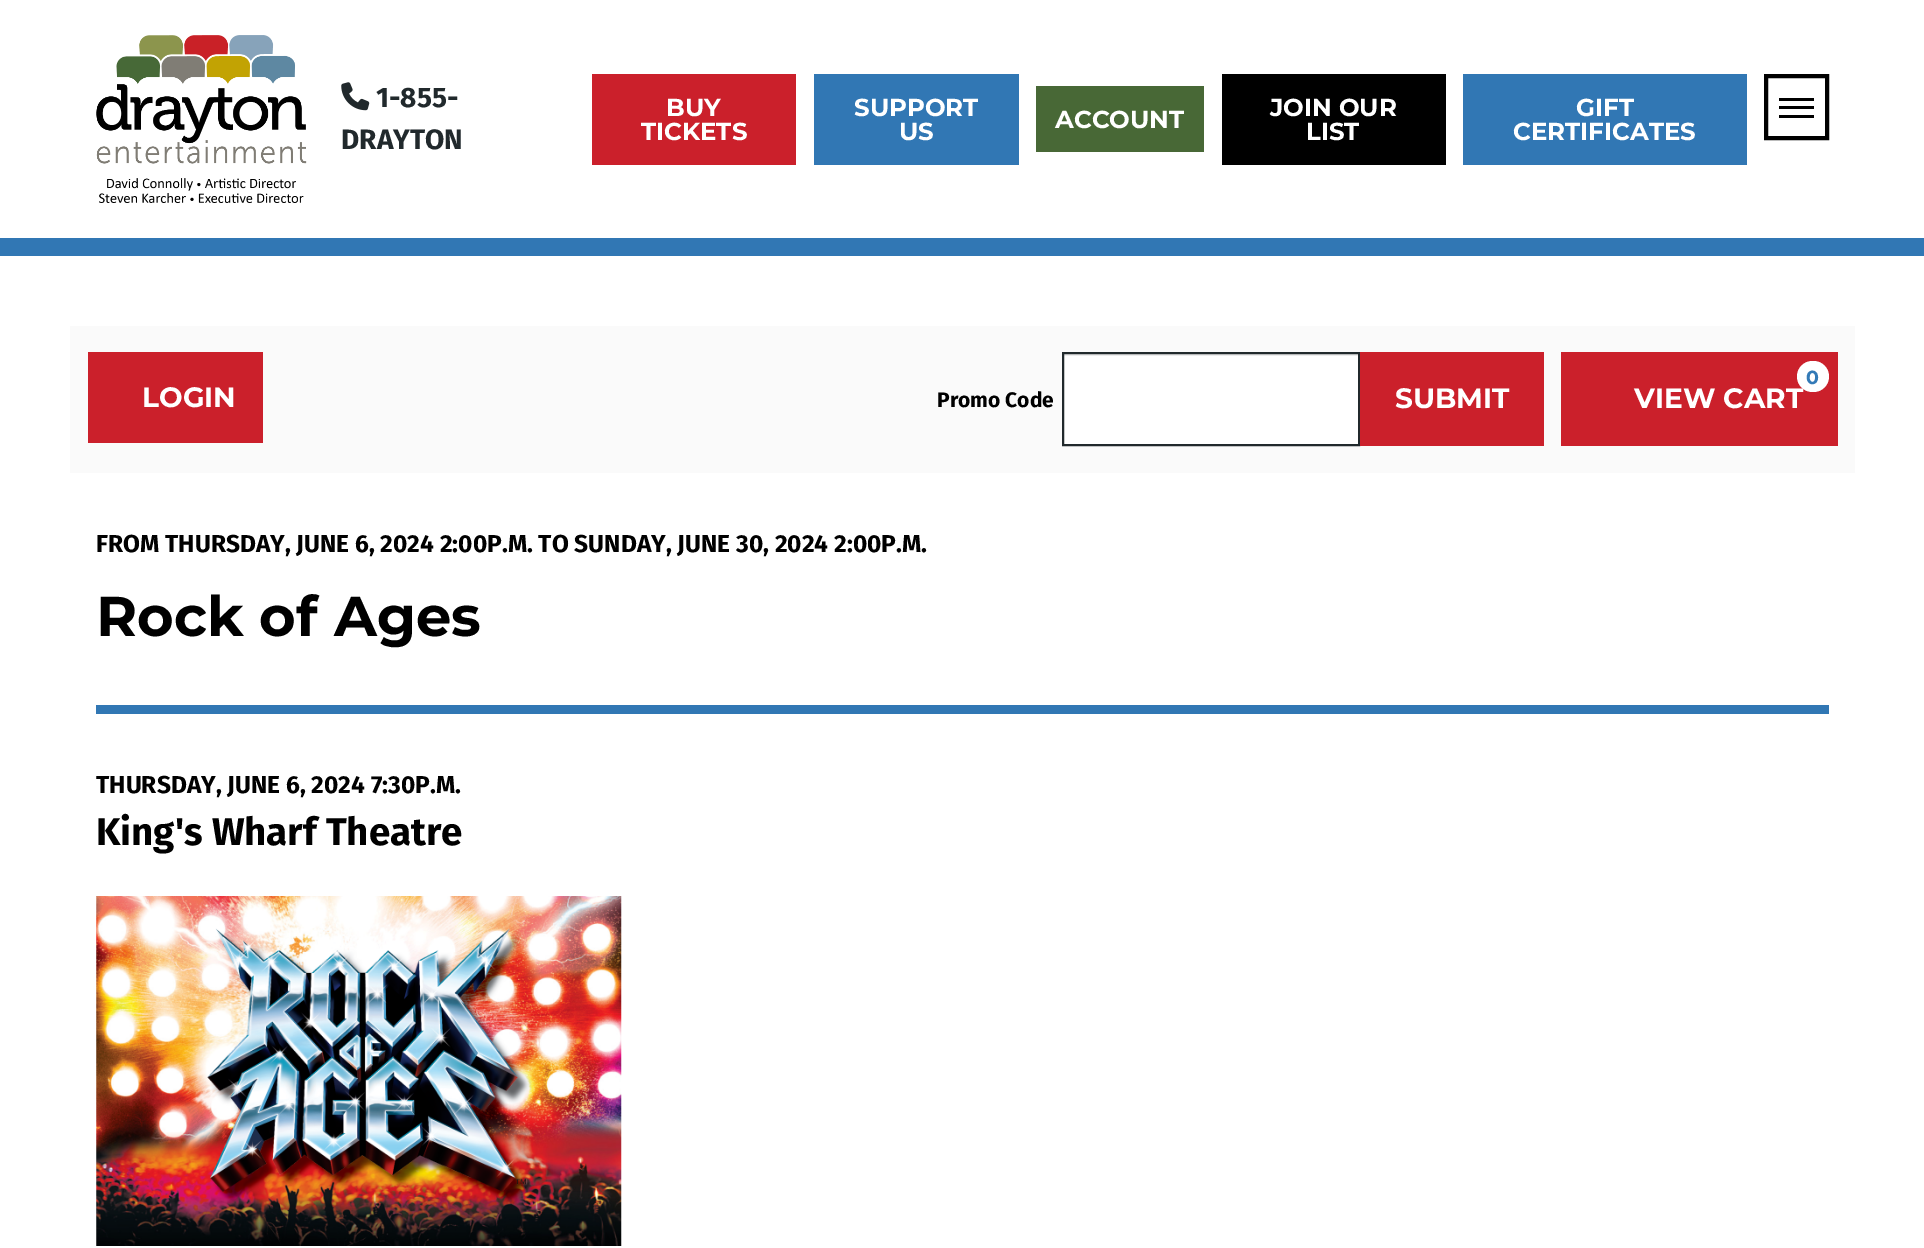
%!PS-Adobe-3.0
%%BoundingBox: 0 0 1924 1248
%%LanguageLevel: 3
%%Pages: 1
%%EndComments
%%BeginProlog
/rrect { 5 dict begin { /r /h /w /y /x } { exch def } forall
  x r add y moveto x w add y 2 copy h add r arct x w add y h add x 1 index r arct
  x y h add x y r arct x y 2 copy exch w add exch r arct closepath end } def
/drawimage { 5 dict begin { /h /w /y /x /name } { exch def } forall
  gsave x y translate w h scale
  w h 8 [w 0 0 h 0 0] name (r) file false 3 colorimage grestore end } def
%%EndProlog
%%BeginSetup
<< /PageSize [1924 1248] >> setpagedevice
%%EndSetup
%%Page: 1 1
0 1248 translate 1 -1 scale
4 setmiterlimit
1 setgray
0 0 1924 1248 rectfill
(images/1.raw) 96 35 211 168 drawimage
(images/2.raw) 341 82 29 29 drawimage
0.796 0.125 0.169 setrgbcolor
592 74 204 91 rectfill
0.192 0.467 0.706 setrgbcolor
814 74 205 91 rectfill
0.282 0.408 0.212 setrgbcolor
1036 86 168 66 rectfill
0 setgray
1222 74 224 91 rectfill
0.192 0.467 0.706 setrgbcolor
1463 74 284 91 rectfill
0 setgray
4 setlinewidth
1766 76 61 62 rectstroke
1779 98 35 3 rectfill
1779 106 35 3 rectfill
1779 115 35 3 rectfill
0.192 0.467 0.706 setrgbcolor
0 238 1924 18 rectfill
0.98 setgray
70 326 1785 147 rectfill
0.796 0.125 0.169 setrgbcolor
88 352 175 91 rectfill
1 setgray
1064 356 294 88 rectfill
0.925 setgray
1064 354 294 2 rectfill
0.129 0.161 0.173 setrgbcolor
2 setlinewidth
1063 353 296 92 rectstroke
0.796 0.125 0.169 setrgbcolor
1360 352 184 94 rectfill
1561 352 277 94 rectfill
1 setgray
1797 361 32 31 15.5 rrect fill
0.192 0.467 0.706 setrgbcolor
96 705 1733 9 rectfill
(images/3.raw) 96 896 526 350 drawimage
/FiraSans-Bold [28 0 0 -28 0 0] selectfont
0.129 0.161 0.173 setrgbcolor
376 107 moveto (1-855-) show
341 149 moveto (DRAYTON) show
/Montserrat-Bold [24.5 0 0 -24.5 0 0] selectfont
1 setgray
666 116 moveto (BUY) show
641 140 moveto (TICKETS) show
854 116 moveto (SUPPORT) show
899 140 moveto (US) show
1055 128 moveto (ACCOUNT) show
1270 116 moveto (JOIN OUR) show
1306 140 moveto (LIST) show
1576 116 moveto (GIFT) show
1513 140 moveto (CERTIFICATES) show
/Montserrat-Bold [28 0 0 -28 0 0] selectfont
142 407 moveto (LOGIN) show
/FiraSans-Bold [21 0 0 -21 0 0] selectfont
0 setgray
937 407 moveto (Promo Code) show
/Montserrat-Bold [28 0 0 -28 0 0] selectfont
1 setgray
1395 408 moveto (SUBMIT) show
/Montserrat-Bold [19 0 0 -19 0 0] selectfont
0.2 0.478 0.718 setrgbcolor
1806 384 moveto (0) show
/Montserrat-Bold [28 0 0 -28 0 0] selectfont
1 setgray
1634 408 moveto (VIEW CART) show
/FiraSans-Bold [24.5 0 0 -24.5 0 0] selectfont
0 setgray
96 552 moveto (FROM THURSDAY, JUNE 6, 2024 2:00P.M. TO SUNDAY, JUNE 30, 2024 2:00P.M.) show
/Montserrat-Bold [56 0 0 -56 0 0] selectfont
96 636 moveto (Rock of Ages) show
/FiraSans-Bold [24.5 0 0 -24.5 0 0] selectfont
96 793 moveto (THURSDAY, JUNE 6, 2024 7:30P.M.) show
/FiraSans-Bold [38.5 0 0 -38.5 0 0] selectfont
96 845 moveto (King's Wharf Theatre) show
showpage
%%EOF
